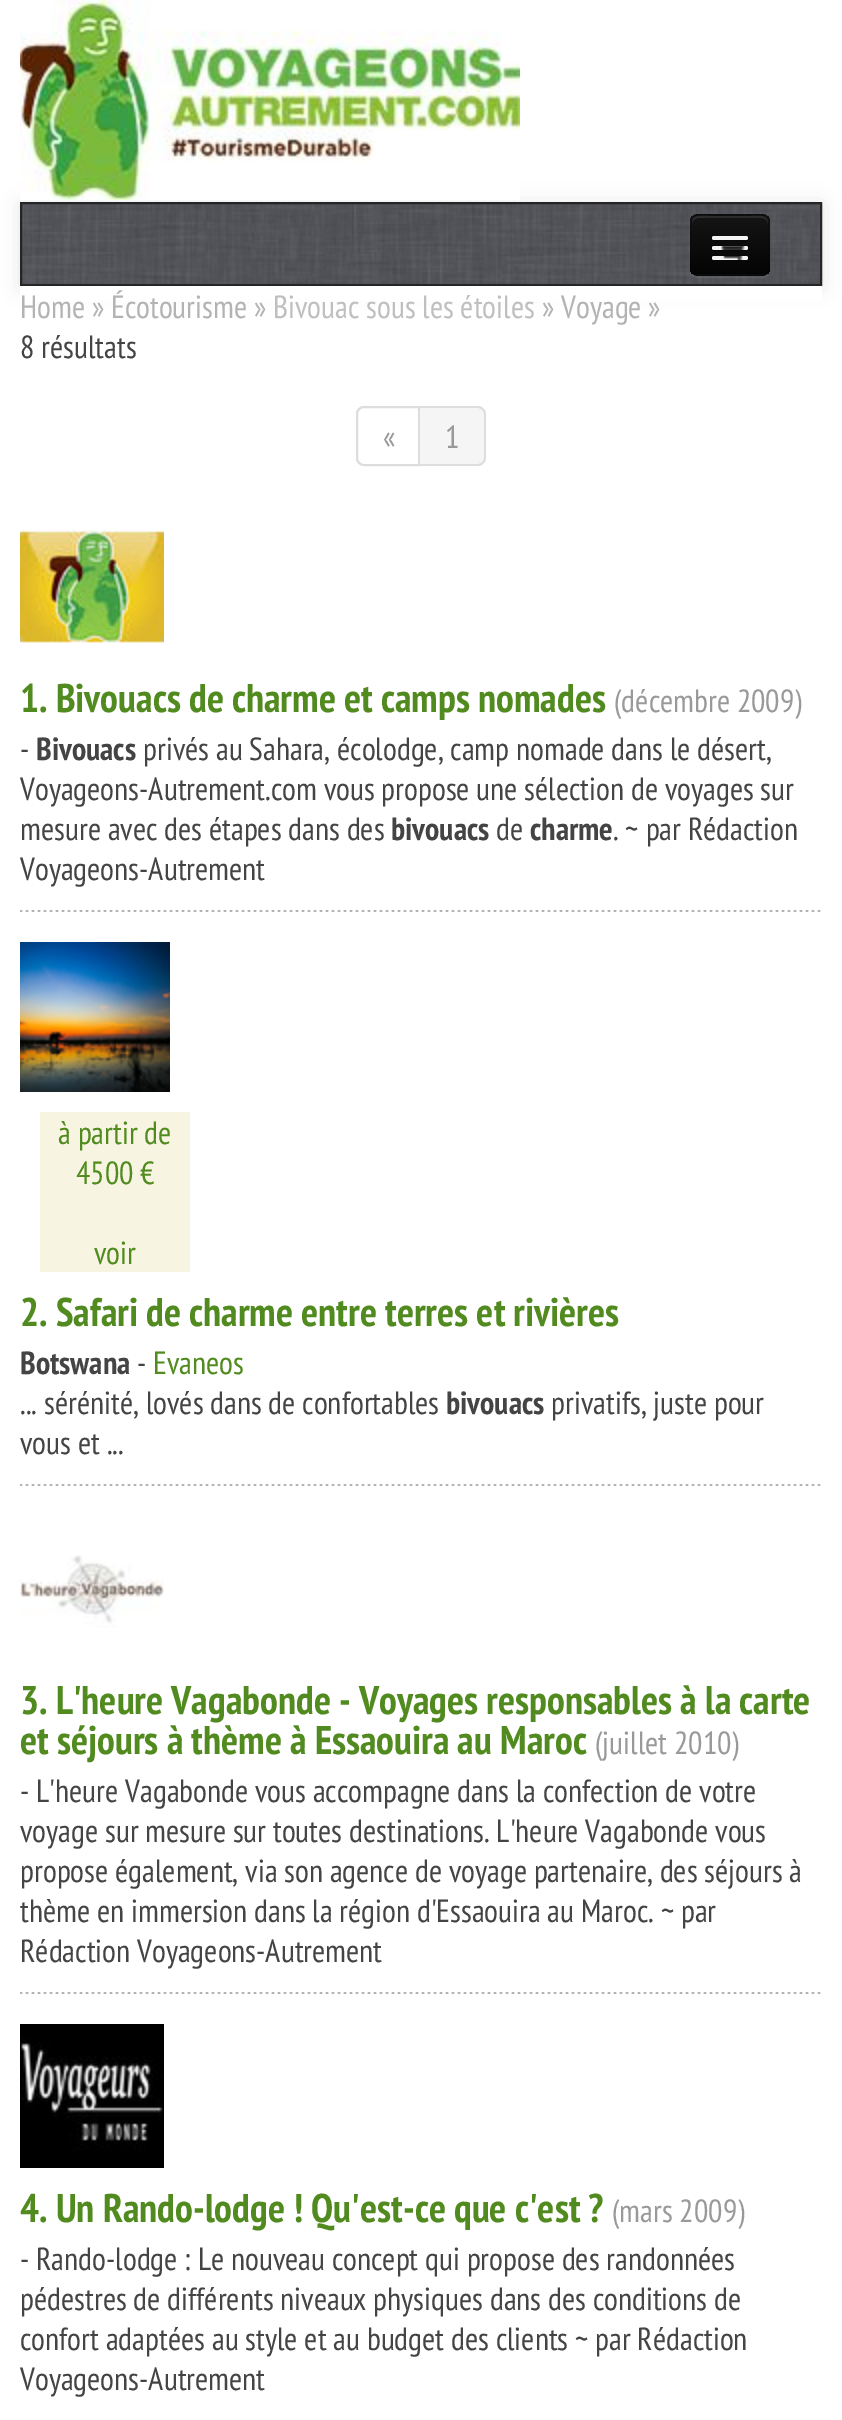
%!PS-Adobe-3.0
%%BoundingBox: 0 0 842 2420
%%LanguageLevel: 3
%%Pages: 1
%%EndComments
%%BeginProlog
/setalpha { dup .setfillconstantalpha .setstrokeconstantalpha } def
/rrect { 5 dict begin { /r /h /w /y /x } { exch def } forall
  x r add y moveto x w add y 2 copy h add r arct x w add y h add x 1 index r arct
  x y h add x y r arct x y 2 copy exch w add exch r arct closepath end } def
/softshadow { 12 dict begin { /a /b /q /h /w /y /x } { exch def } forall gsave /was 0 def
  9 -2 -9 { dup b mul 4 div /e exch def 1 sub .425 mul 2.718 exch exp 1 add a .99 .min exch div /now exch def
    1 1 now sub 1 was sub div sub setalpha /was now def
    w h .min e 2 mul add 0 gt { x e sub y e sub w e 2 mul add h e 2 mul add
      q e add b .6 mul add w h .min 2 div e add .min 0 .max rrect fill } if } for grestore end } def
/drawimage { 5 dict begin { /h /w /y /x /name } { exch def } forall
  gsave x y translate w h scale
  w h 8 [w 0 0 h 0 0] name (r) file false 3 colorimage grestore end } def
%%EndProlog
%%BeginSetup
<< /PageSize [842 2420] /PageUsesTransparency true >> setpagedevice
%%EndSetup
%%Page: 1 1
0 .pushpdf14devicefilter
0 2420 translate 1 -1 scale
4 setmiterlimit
1 setgray
0 0 842 2420 rectfill
0 setgray
20 204 802 84 0 10 0.1 softshadow
(images/1.raw) 20 0 500 200 drawimage
(images/2.raw) 22 204 798 80 drawimage
0.145 setgray
2 setlinewidth
21 203 800 82 rectstroke
0.07 setalpha
1 setgray
newpath 690 268 moveto 690 280 699 278 709 278 curveto 751 278 lineto 761 278 770 280 770 268 curveto 770 272 766 276 762 276 curveto 698 276 lineto 694 276 690 272 690 268 curveto closepath fill
1 setalpha
0.055 setgray
690 214 80 62 8 rrect fill
gsave
690 214 80 62 8 rrect clip newpath
gsave newpath 690 216 moveto 770 216 lineto 770 274 lineto 690 274 lineto closepath clip newpath
<< /ShadingType 2 /ColorSpace /DeviceRGB /Coords [730 216 730 274] /Extend [true true] /Function << /FunctionType 2 /Domain [0 1] /C0 [0.082 0.082 0.082] /C1 [0.016 0.016 0.016] /N 1 >> >> shfill grestore
grestore
0.173 setgray
newpath 698 218 moveto 762 218 lineto 765 218 768 221 768 224 curveto 768 214 760 216 751 216 curveto 709 216 lineto 700 216 692 214 692 224 curveto 692 221 695 218 698 218 curveto closepath fill
0.25 setalpha
0 setgray
newpath 767 273 moveto 765.5 274.5 764 275 762 275 curveto 698 275 lineto 696 275 694.5 274.5 693 273 curveto stroke
0.1 setalpha
newpath 693 273 moveto 691.5 271.5 691 270 691 268 curveto 691 222 lineto 691 220 691.5 218.5 693 217 curveto 694.5 215.5 696 215 698 215 curveto 762 215 lineto 764 215 765.5 215.5 767 217 curveto 768.5 218.5 769 220 769 222 curveto 769 268 lineto 769 270 768.5 271.5 767 273 curveto stroke
1 setalpha
0.043 setgray
newpath 712.5 239 moveto 710 243 719 242 719.5 242 curveto 740.5 242 lineto 741 242 750 243 747.5 239 curveto 747.5 239.5 746.5 240 746 240 curveto 714 240 lineto 713.5 240 712.5 239.5 712.5 239 curveto closepath fill
0.961 setgray
712 236 36 4 2 rrect fill
0.031 setgray
newpath 712.5 249 moveto 710 253 719 252 719.5 252 curveto 740.5 252 lineto 741 252 750 253 747.5 249 curveto 747.5 249.5 746.5 250 746 250 curveto 714 250 lineto 713.5 250 712.5 249.5 712.5 249 curveto closepath fill
0.961 setgray
712 246 36 4 2 rrect fill
(images/3.raw) 721 246 24 4 drawimage
712 256 36 4 2 rrect fill
(images/4.raw) 722 256 21 4 drawimage
1 setgray
20 286 802 15 rectfill
0.867 setgray
newpath 364 407 moveto 419 407 lineto 419 465 lineto 364 465 lineto 360 465 357 462 357 458 curveto 357 414 lineto 357 410 360 407 364 407 curveto closepath stroke
0.961 setgray
newpath 420 408 moveto 478 408 lineto 481.5 408 484 410.5 484 414 curveto 484 458 lineto 484 461.5 481.5 464 478 464 curveto 420 464 lineto closepath fill
0.867 setgray
newpath 420 406 moveto 478 406 lineto 482 406 486 410 486 414 curveto 486 458 lineto 486 462 482 466 478 466 curveto 420 466 lineto closepath 420 408 moveto 478 408 lineto 481 408 484 411 484 414 curveto 484 458 lineto 484 461 481 464 478 464 curveto 420 464 lineto closepath eofill
(images/5.raw) 20 910 801 2 drawimage
(images/6.raw) 20 529 144 114 drawimage
(images/5.raw) 20 1484 801 2 drawimage
(images/7.raw) 20 942 150 150 drawimage
0.969 0.961 0.882 setrgbcolor
40 1112 150 160 rectfill
(images/5.raw) 20 1992 801 2 drawimage
(images/8.raw) 20 1555 144 73 drawimage
(images/9.raw) 20 2024 144 144 drawimage
/PTSansNarrow-Regular [32 0 0 -32 0 0] selectfont
0.702 setgray
20 318 moveto (Home » Écotourisme ») show
0.749 setgray
273 318 moveto (Bivouac sous les étoiles) show
0.702 setgray
542 318 moveto (» Voyage ») show
0.267 setgray
20 358 moveto (8 résultats) show
0.6 setgray
383 448 moveto («) show
445 448 moveto (1) show
/PTSansNarrow-Bold [40 0 0 -40 0 0] selectfont
0.318 0.541 0.118 setrgbcolor
20 712 moveto (1. Bivouacs de charme et camps nomades) show
/PTSansNarrow-Regular [32 0 0 -32 0 0] selectfont
0.6 setgray
614 712 moveto (\(décembre 2009\)) show
0.267 setgray
20 760 moveto (-) show
/PTSansNarrow-Bold [32 0 0 -32 0 0] selectfont
36 760 moveto (Bivouacs) show
/PTSansNarrow-Regular [32 0 0 -32 0 0] selectfont
143 760 moveto (privés au Sahara, écolodge, camp nomade dans le désert,) show
20 800 moveto (Voyageons-Autrement.com vous propose une sélection de voyages sur) show
20 840 moveto (mesure avec des étapes dans des) show
/PTSansNarrow-Bold [32 0 0 -32 0 0] selectfont
391 840 moveto (bivouacs) show
/PTSansNarrow-Regular [32 0 0 -32 0 0] selectfont
496 840 moveto (de) show
/PTSansNarrow-Bold [32 0 0 -32 0 0] selectfont
530 840 moveto (charme) show
/PTSansNarrow-Regular [32 0 0 -32 0 0] selectfont
613 840 moveto (. ~ par Rédaction) show
20 880 moveto (Voyageons-Autrement) show
0.318 0.541 0.118 setrgbcolor
58 1144 moveto (à partir de) show
76 1184 moveto (4500 €) show
94 1264 moveto (voir) show
/PTSansNarrow-Bold [40 0 0 -40 0 0] selectfont
20 1326 moveto (2. Safari de charme entre terres et rivières) show
/PTSansNarrow-Bold [32 0 0 -32 0 0] selectfont
0.267 setgray
20 1374 moveto (Botswana) show
/PTSansNarrow-Regular [32 0 0 -32 0 0] selectfont
137 1374 moveto (-) show
0.318 0.541 0.118 setrgbcolor
153 1374 moveto (Evaneos) show
0.267 setgray
20 1414 moveto (... sérénité, lovés dans de confortables) show
/PTSansNarrow-Bold [32 0 0 -32 0 0] selectfont
446 1414 moveto (bivouacs) show
/PTSansNarrow-Regular [32 0 0 -32 0 0] selectfont
551 1414 moveto (privatifs, juste pour) show
20 1454 moveto (vous et ...) show
/PTSansNarrow-Bold [40 0 0 -40 0 0] selectfont
0.318 0.541 0.118 setrgbcolor
20 1714 moveto (3. L'heure Vagabonde - Voyages responsables à la carte) show
20 1754 moveto (et séjours à thème à Essaouira au Maroc) show
/PTSansNarrow-Regular [32 0 0 -32 0 0] selectfont
0.6 setgray
595 1754 moveto (\(juillet 2010\)) show
0.267 setgray
20 1802 moveto (- L'heure Vagabonde vous accompagne dans la confection de votre) show
20 1842 moveto (voyage sur mesure sur toutes destinations. L'heure Vagabonde vous) show
20 1882 moveto (propose également, via son agence de voyage partenaire, des séjours à) show
20 1922 moveto (thème en immersion dans la région d'Essaouira au Maroc. ~ par) show
20 1962 moveto (Rédaction Voyageons-Autrement) show
/PTSansNarrow-Bold [40 0 0 -40 0 0] selectfont
0.318 0.541 0.118 setrgbcolor
20 2222 moveto (4. Un Rando-lodge ! Qu'est-ce que c'est ?) show
/PTSansNarrow-Regular [32 0 0 -32 0 0] selectfont
0.6 setgray
612 2222 moveto (\(mars 2009\)) show
0.267 setgray
20 2270 moveto (- Rando-lodge : Le nouveau concept qui propose des randonnées) show
20 2310 moveto (pédestres de différents niveaux physiques dans des conditions de) show
20 2350 moveto (confort adaptées au style et au budget des clients ~ par Rédaction) show
20 2390 moveto (Voyageons-Autrement) show
.poppdf14devicefilter showpage
%%EOF
